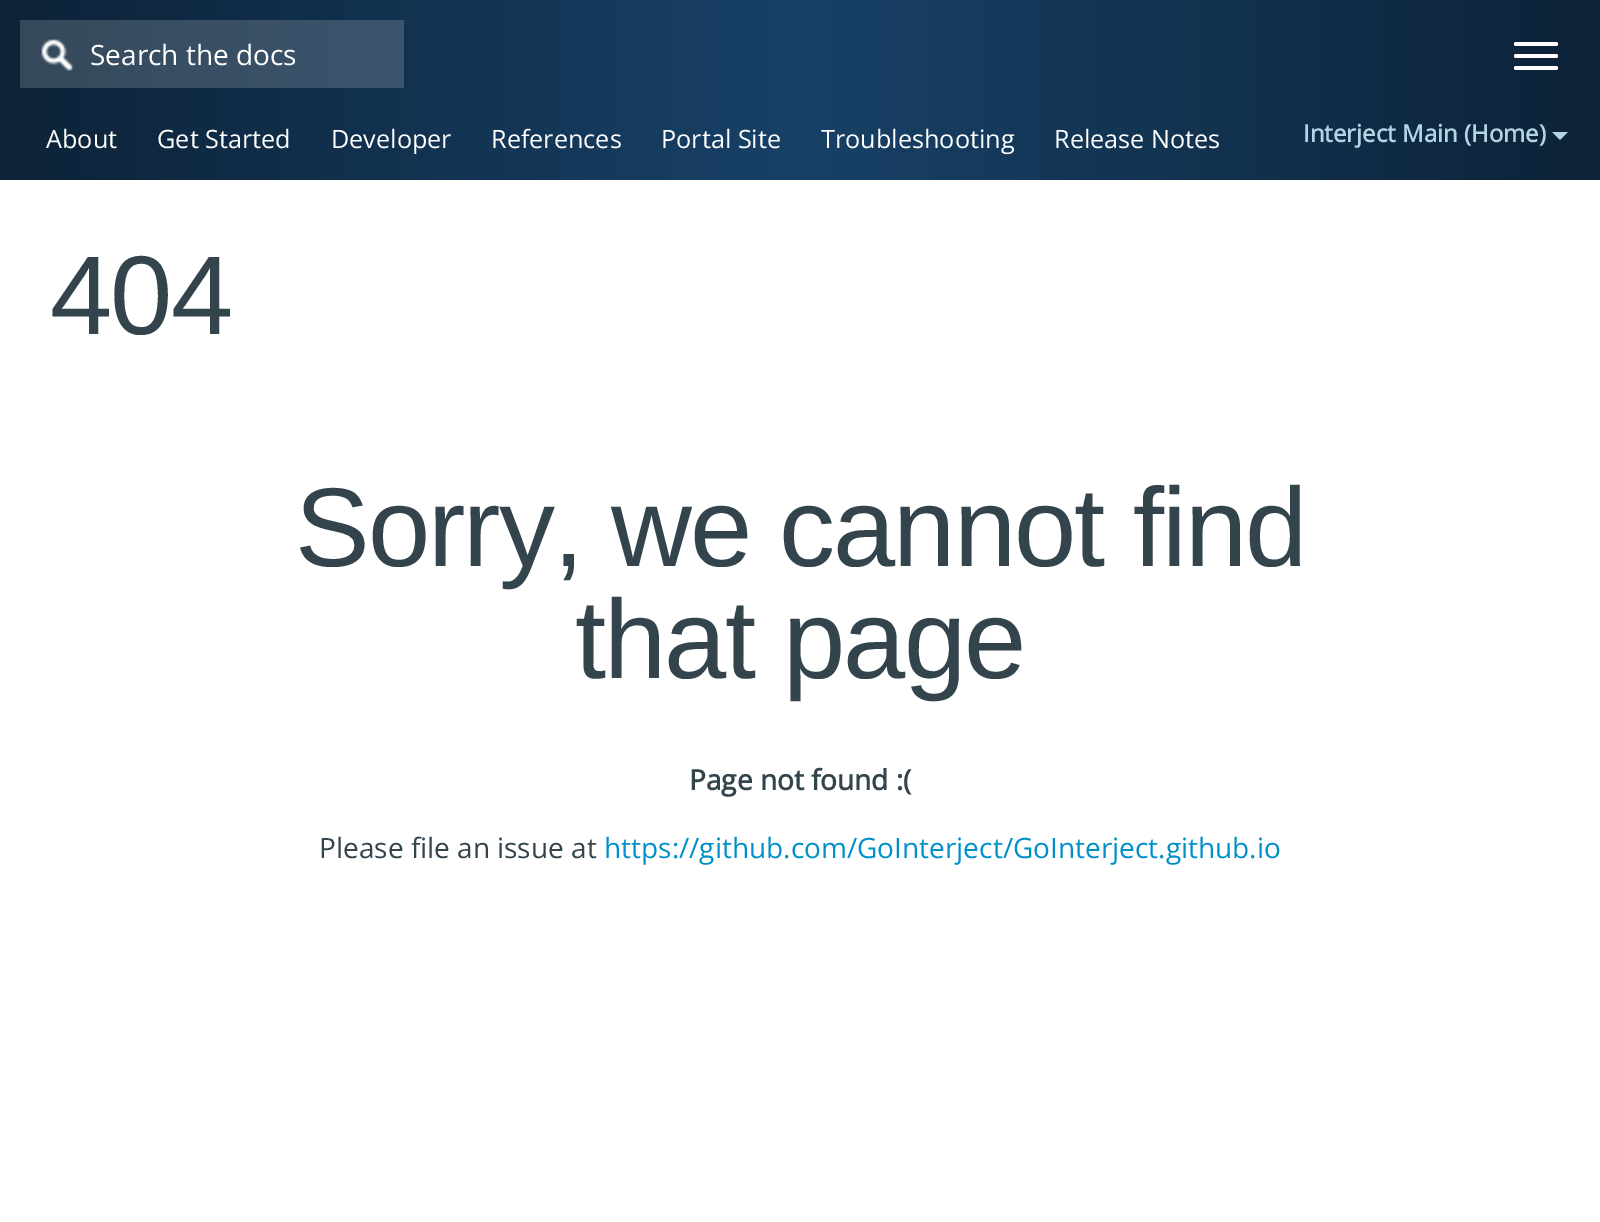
%!PS-Adobe-3.0
%%BoundingBox: 0 0 1600 1222
%%LanguageLevel: 3
%%Pages: 1
%%EndComments
%%BeginProlog
/rrect { 5 dict begin { /r /h /w /y /x } { exch def } forall
  x r add y moveto x w add y 2 copy h add r arct x w add y h add x 1 index r arct
  x y h add x y r arct x y 2 copy exch w add exch r arct closepath end } def
/drawimage { 5 dict begin { /h /w /y /x /name } { exch def } forall
  gsave x y translate w h scale
  w h 8 [w 0 0 h 0 0] name (r) file false 3 colorimage grestore end } def
%%EndProlog
%%BeginSetup
<< /PageSize [1600 1222] >> setpagedevice
%%EndSetup
%%Page: 1 1
0 1222 translate 1 -1 scale
4 setmiterlimit
1 setgray
0 0 1600 1222 rectfill
gsave newpath 0 0 moveto 1600 0 lineto 1600 180 lineto 0 180 lineto closepath clip newpath
<< /ShadingType 2 /ColorSpace /DeviceRGB /Coords [0 89 1600 89] /Extend [true true] /Function << /FunctionType 3 /Domain [0 1] /Functions [<< /FunctionType 2 /Domain [0 1] /C0 [0.051 0.137 0.22] /C1 [0.094 0.255 0.404] /N 1 >> << /FunctionType 2 /Domain [0 1] /C0 [0.094 0.255 0.404] /C1 [0.051 0.137 0.22] /N 1 >>] /Bounds [0.5] /Encode [0 1 0 1] >> >> shfill grestore
gsave newpath 20 20 moveto 404 20 lineto 404 88 lineto 20 88 lineto closepath clip newpath
<< /ShadingType 2 /ColorSpace /DeviceRGB /Coords [0 89 1600 89] /Extend [true true] /Function << /FunctionType 3 /Domain [0 1] /Functions [<< /FunctionType 2 /Domain [0 1] /C0 [0.212 0.282 0.353] /C1 [0.247 0.38 0.506] /N 1 >> << /FunctionType 2 /Domain [0 1] /C0 [0.247 0.38 0.506] /C1 [0.212 0.282 0.353] /N 1 >>] /Bounds [0.5] /Encode [0 1 0 1] >> >> shfill grestore
(images/1.raw) 41 39 32 32 drawimage
1514 42 44 4 2 rrect fill
1514 54 44 4 2 rrect fill
1514 66 44 4 2 rrect fill
0.706 0.831 0.894 setrgbcolor
newpath 1552 132 moveto 1568 132 lineto 1560 140 lineto closepath fill
/OpenSans-Regular [28 0 0 -28 0 0] selectfont
1 setgray
90 65 moveto (Search the docs) show
/OpenSans-Regular [25.25 0 0 -25.25 0 0] selectfont
46 148 moveto (About) show
157 148 moveto (Get Started) show
331 148 moveto (Developer) show
491 148 moveto (References) show
661 148 moveto (Portal Site) show
821 148 moveto (Troubleshooting) show
1054 148 moveto (Release Notes) show
/OpenSans-Bold [24 0 0 -24 0 0] selectfont
0.706 0.831 0.894 setrgbcolor
1303 142 moveto (Interject Main \(Home\)) show
/LiberationSans-Regular [112 0 0 -112 0 0] selectfont
0.2 0.267 0.298 setrgbcolor
50 334 moveto -2 0 (404) ashow
295 566 moveto -2 0 (Sorry, we cannot find) ashow
575 678 moveto -2 0 (that page) ashow
/OpenSans-Bold [28 0 0 -28 0 0] selectfont
689 790 moveto (Page not found :\() show
/OpenSans-Regular [28 0 0 -28 0 0] selectfont
319 858 moveto (Please file an issue at) show
0 0.565 0.784 setrgbcolor
604 858 moveto (https://github.com/GoInterject/GoInterject.github.io) show
showpage
%%EOF
